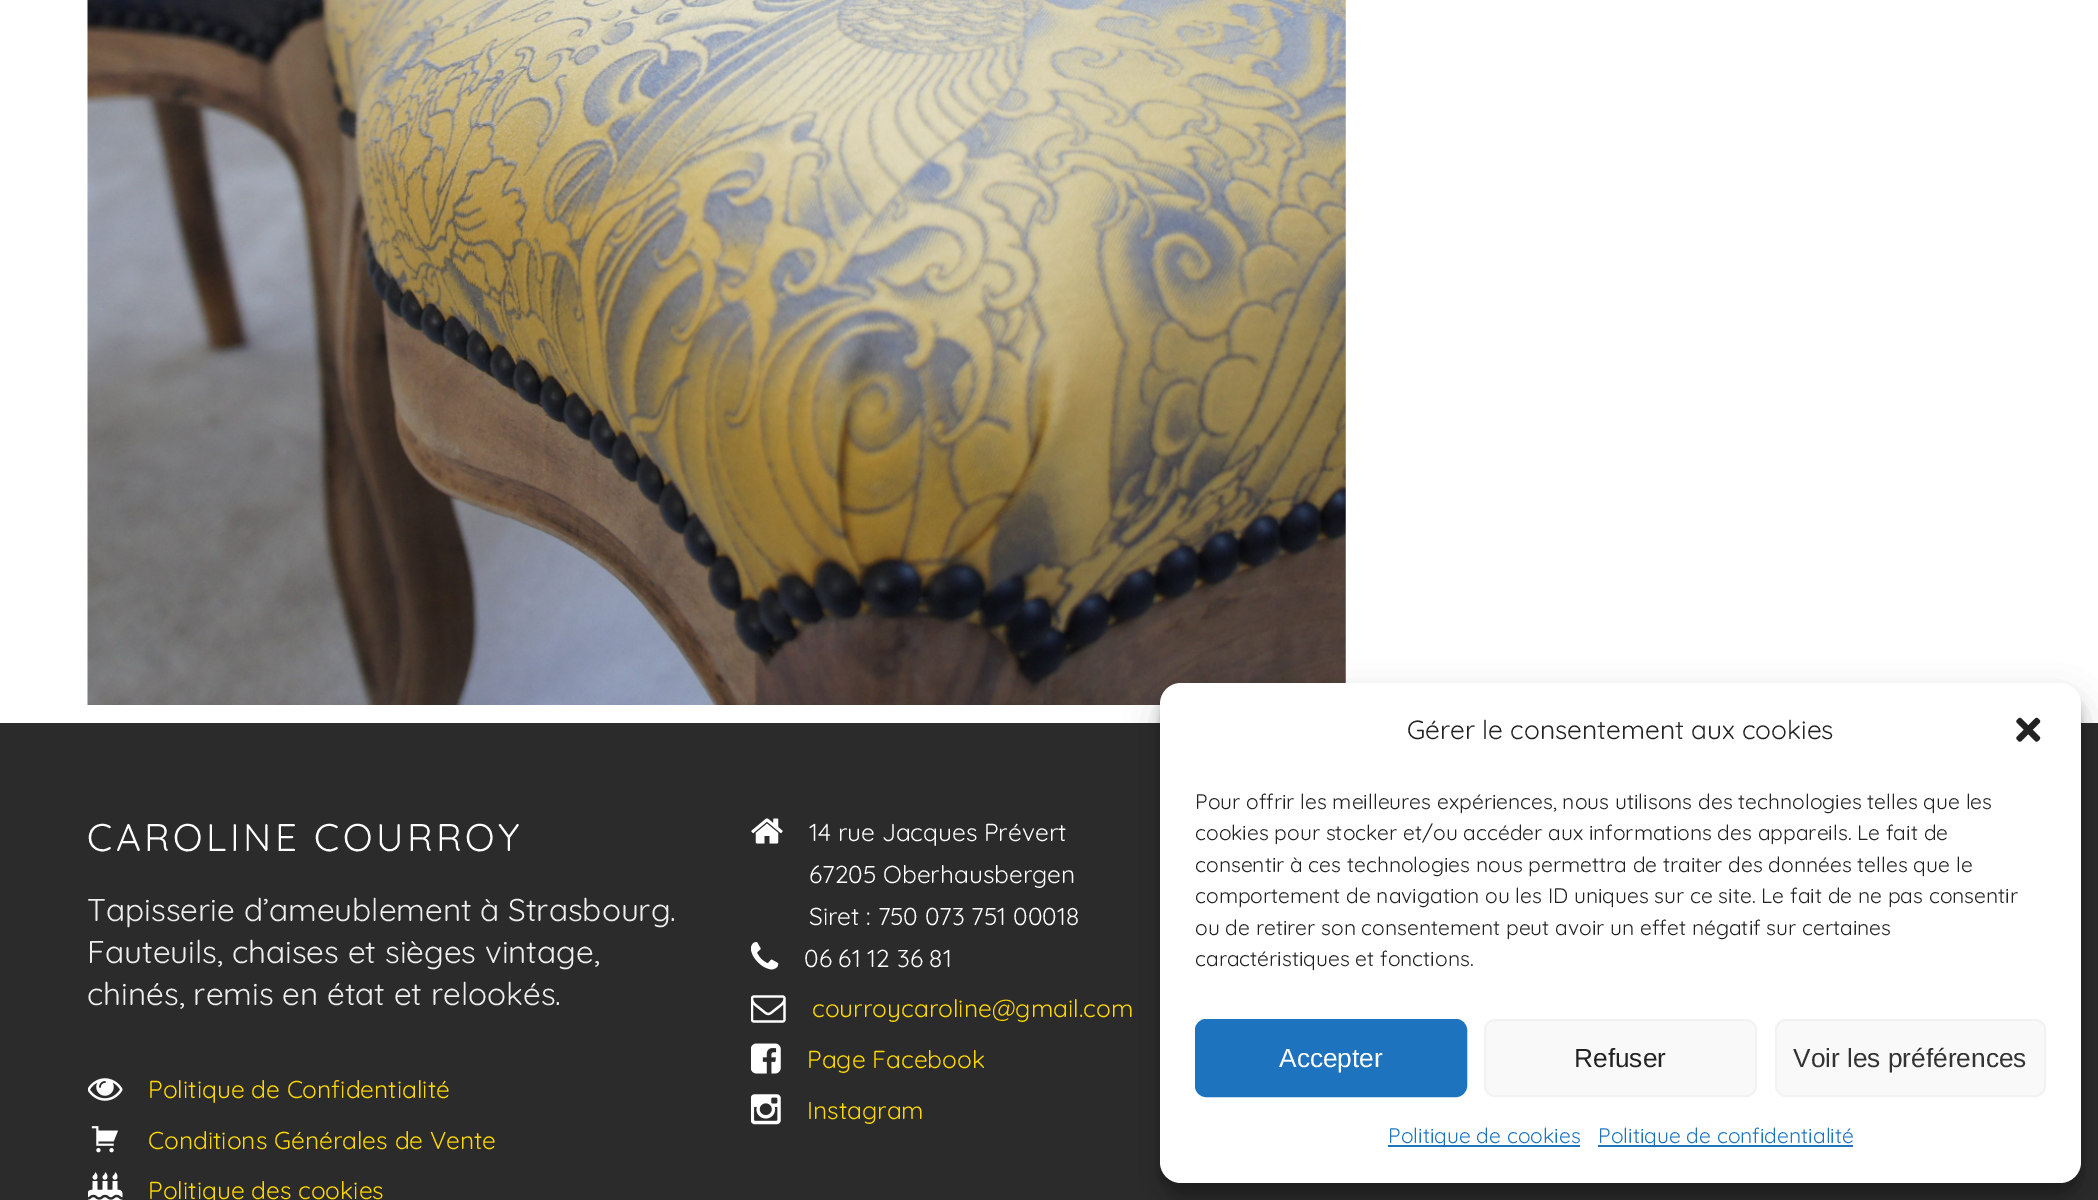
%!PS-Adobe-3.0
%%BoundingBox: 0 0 2098 1200
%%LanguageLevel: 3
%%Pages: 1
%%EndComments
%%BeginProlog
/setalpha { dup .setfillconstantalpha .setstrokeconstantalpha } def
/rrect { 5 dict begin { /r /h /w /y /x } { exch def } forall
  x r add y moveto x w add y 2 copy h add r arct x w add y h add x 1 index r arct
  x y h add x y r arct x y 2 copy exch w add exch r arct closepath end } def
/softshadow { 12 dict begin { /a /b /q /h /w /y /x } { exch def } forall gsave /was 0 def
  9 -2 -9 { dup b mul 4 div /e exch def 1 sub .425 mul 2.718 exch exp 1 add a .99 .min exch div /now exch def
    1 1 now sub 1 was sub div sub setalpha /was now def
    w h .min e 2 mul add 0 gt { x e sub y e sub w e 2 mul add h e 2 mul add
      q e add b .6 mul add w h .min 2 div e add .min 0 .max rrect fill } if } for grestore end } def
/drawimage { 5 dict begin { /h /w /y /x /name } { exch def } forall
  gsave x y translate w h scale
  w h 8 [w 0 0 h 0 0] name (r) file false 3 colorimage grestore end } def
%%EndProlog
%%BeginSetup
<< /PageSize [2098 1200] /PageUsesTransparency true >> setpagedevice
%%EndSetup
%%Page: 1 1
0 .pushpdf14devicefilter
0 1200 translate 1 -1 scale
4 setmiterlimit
1 setgray
0 0 2098 1200 rectfill
(images/1.raw) 87 0 1259 705 drawimage
0.169 setgray
0 723 2098 477 rectfill
(images/2.raw) 88 1078 35 23 drawimage
(images/3.raw) 91 1126 27 27 drawimage
(images/4.raw) 88 1172 35 28 drawimage
(images/5.raw) 751 818 32 26 drawimage
(images/6.raw) 751 942 28 28 drawimage
(images/7.raw) 751 995 35 28 drawimage
(images/8.raw) 751 1043 30 31 drawimage
(images/9.raw) 751 1094 30 31 drawimage
0 setgray
1160 693 921 501 21 5 0.23 softshadow
1160 700 921 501 21 17.5 0.19 softshadow
1 setgray
1160 683 921 500 21 rrect fill
(images/10.raw) 2016 717 25 25 drawimage
0.118 0.451 0.745 setrgbcolor
1196 1020 270 76 10 rrect gsave fill grestore
2 setlinewidth
stroke
0.976 setgray
1485 1020 271 76 10 rrect gsave fill grestore
0.949 setgray
stroke
0.976 setgray
1776 1020 269 76 10 rrect gsave fill grestore
0.949 setgray
stroke
0.118 0.451 0.745 setrgbcolor
1388 1145 192 2 rectfill
1598 1145 255 2 rectfill
/Quicksand-Regular [38.5 0 0 -38.5 0 0] selectfont
1 setgray
87 851 moveto 3.5 0 (CAROLINE COURROY) ashow
/Quicksand-Regular [31.5 0 0 -31.5 0 0] selectfont
0.933 setgray
87 921 moveto (Tapisserie d’ameublement à Strasbourg.) show
87 963 moveto (Fauteuils, chaises et sièges vintage,) show
87 1005 moveto (chinés, remis en état et relookés.) show
/Quicksand-Regular [24.5 0 0 -24.5 0 0] selectfont
1 0.847 0 setrgbcolor
148 1098 moveto (Politique de Confidentialité) show
148 1149 moveto (Conditions Générales de Vente) show
148 1199 moveto (Politique des cookies) show
1 setgray
809 841 moveto (14 rue Jacques Prévert) show
809 883 moveto (67205 Oberhausbergen) show
809 925 moveto (Siret : 750 073 751 00018) show
804 967 moveto (06 61 12 36 81) show
1 0.847 0 setrgbcolor
812 1017 moveto (courroycaroline@gmail.com) show
807 1068 moveto (Page Facebook) show
807 1119 moveto (Instagram) show
/Quicksand-Regular [26.25 0 0 -26.25 0 0] selectfont
0.133 setgray
1407 739 moveto (Gérer le consentement aux cookies) show
/Quicksand-Regular [21 0 0 -21 0 0] selectfont
1195 809 moveto (Pour offrir les meilleures expériences, nous utilisons des technologies telles que les) show
1195 840 moveto (cookies pour stocker et/ou accéder aux informations des appareils. Le fait de) show
1195 872 moveto (consentir à ces technologies nous permettra de traiter des données telles que le) show
1195 903 moveto (comportement de navigation ou les ID uniques sur ce site. Le fait de ne pas consentir) show
1195 935 moveto (ou de retirer son consentement peut avoir un effet négatif sur certaines) show
1195 966 moveto (caractéristiques et fonctions.) show
/LiberationSans-Regular [26.25 0 0 -26.25 0 0] selectfont
1 setgray
1279 1067 moveto (Accepter) show
0.133 setgray
1574 1067 moveto (Refuser) show
0.2 setgray
1793 1067 moveto (Voir les préférences) show
/Quicksand-Regular [21 0 0 -21 0 0] selectfont
0.118 0.451 0.745 setrgbcolor
1388 1143 moveto (Politique de cookies) show
1598 1143 moveto (Politique de confidentialité) show
.poppdf14devicefilter showpage
%%EOF
